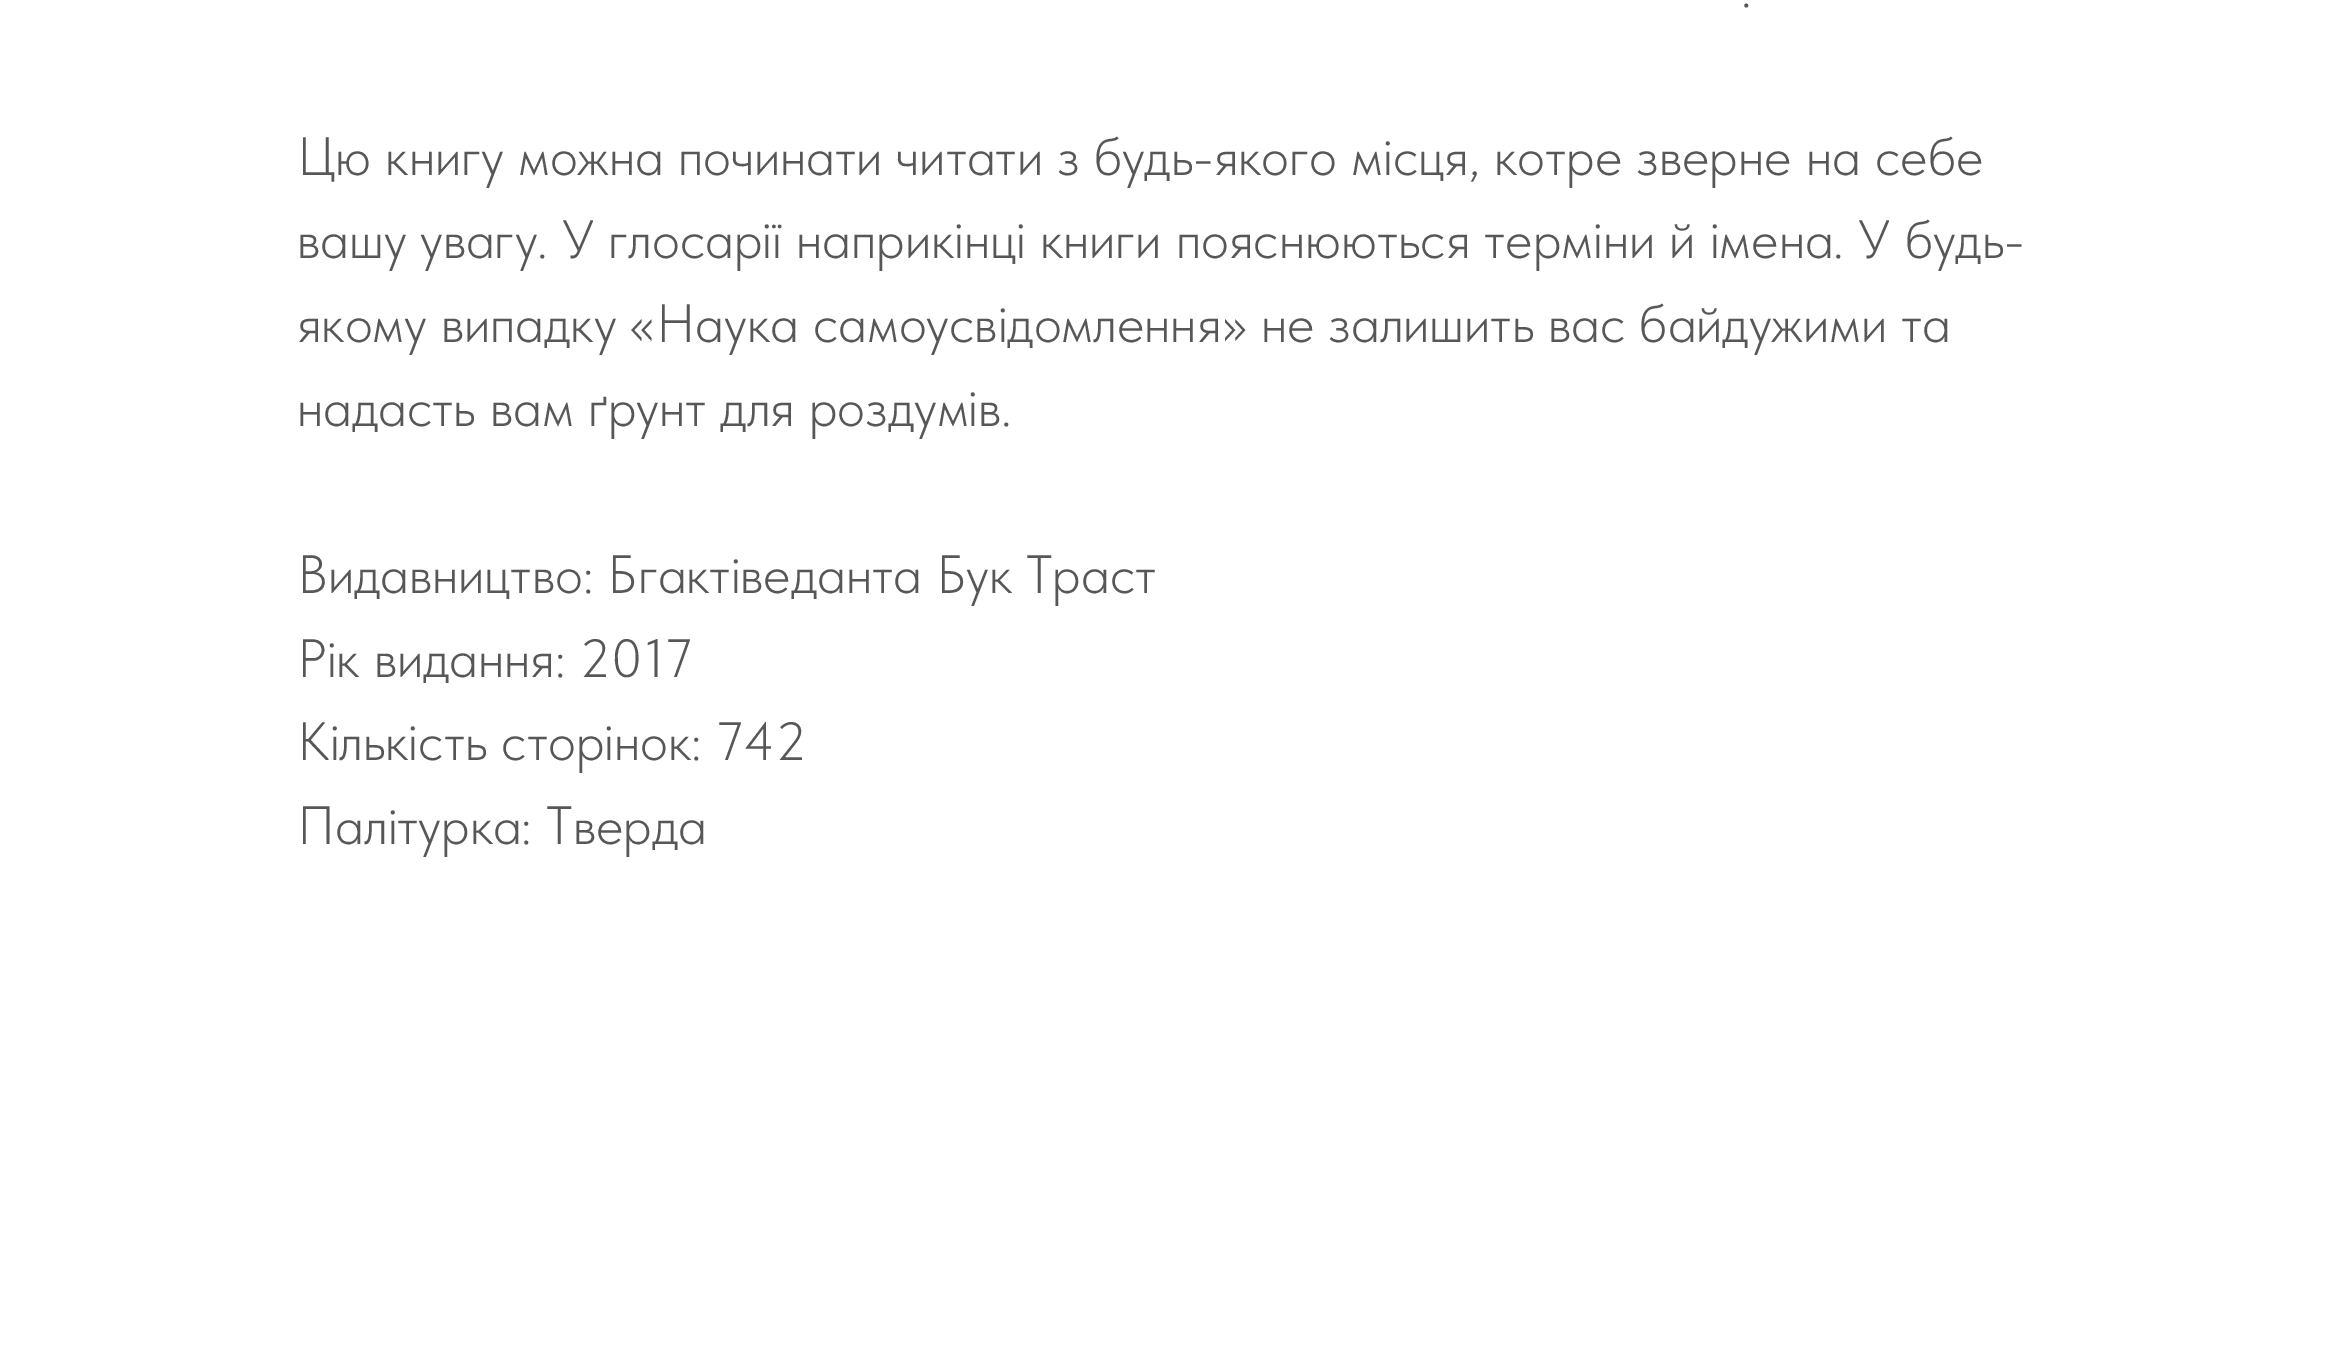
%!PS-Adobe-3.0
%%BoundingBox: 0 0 2332 1345
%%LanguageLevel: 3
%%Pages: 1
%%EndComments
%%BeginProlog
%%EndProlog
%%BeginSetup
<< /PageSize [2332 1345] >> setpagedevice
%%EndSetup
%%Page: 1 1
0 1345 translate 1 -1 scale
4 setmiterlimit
1 setgray
0 0 2332 1345 rectfill
/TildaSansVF-Light [54 0 0 -54 0 0] selectfont
0.341 setgray
1741 7 moveto (.) show
297 175 moveto (Цю книгу можна починати читати з будь-якого місця, котре зверне на себе) show
297 258 moveto (вашу увагу. У глосарії наприкінці книги пояснюються терміни й імена. У будь-) show
297 342 moveto (якому випадку «Наука самоусвідомлення» не залишить вас байдужими та) show
297 426 moveto (надасть вам ґрунт для роздумів.) show
297 593 moveto (Видавництво: Бгактіведанта Бук Траст) show
297 677 moveto (Рік видання: 2017) show
297 760 moveto (Кількість сторінок: 742) show
297 844 moveto (Палітурка: Тверда) show
showpage
%%EOF
